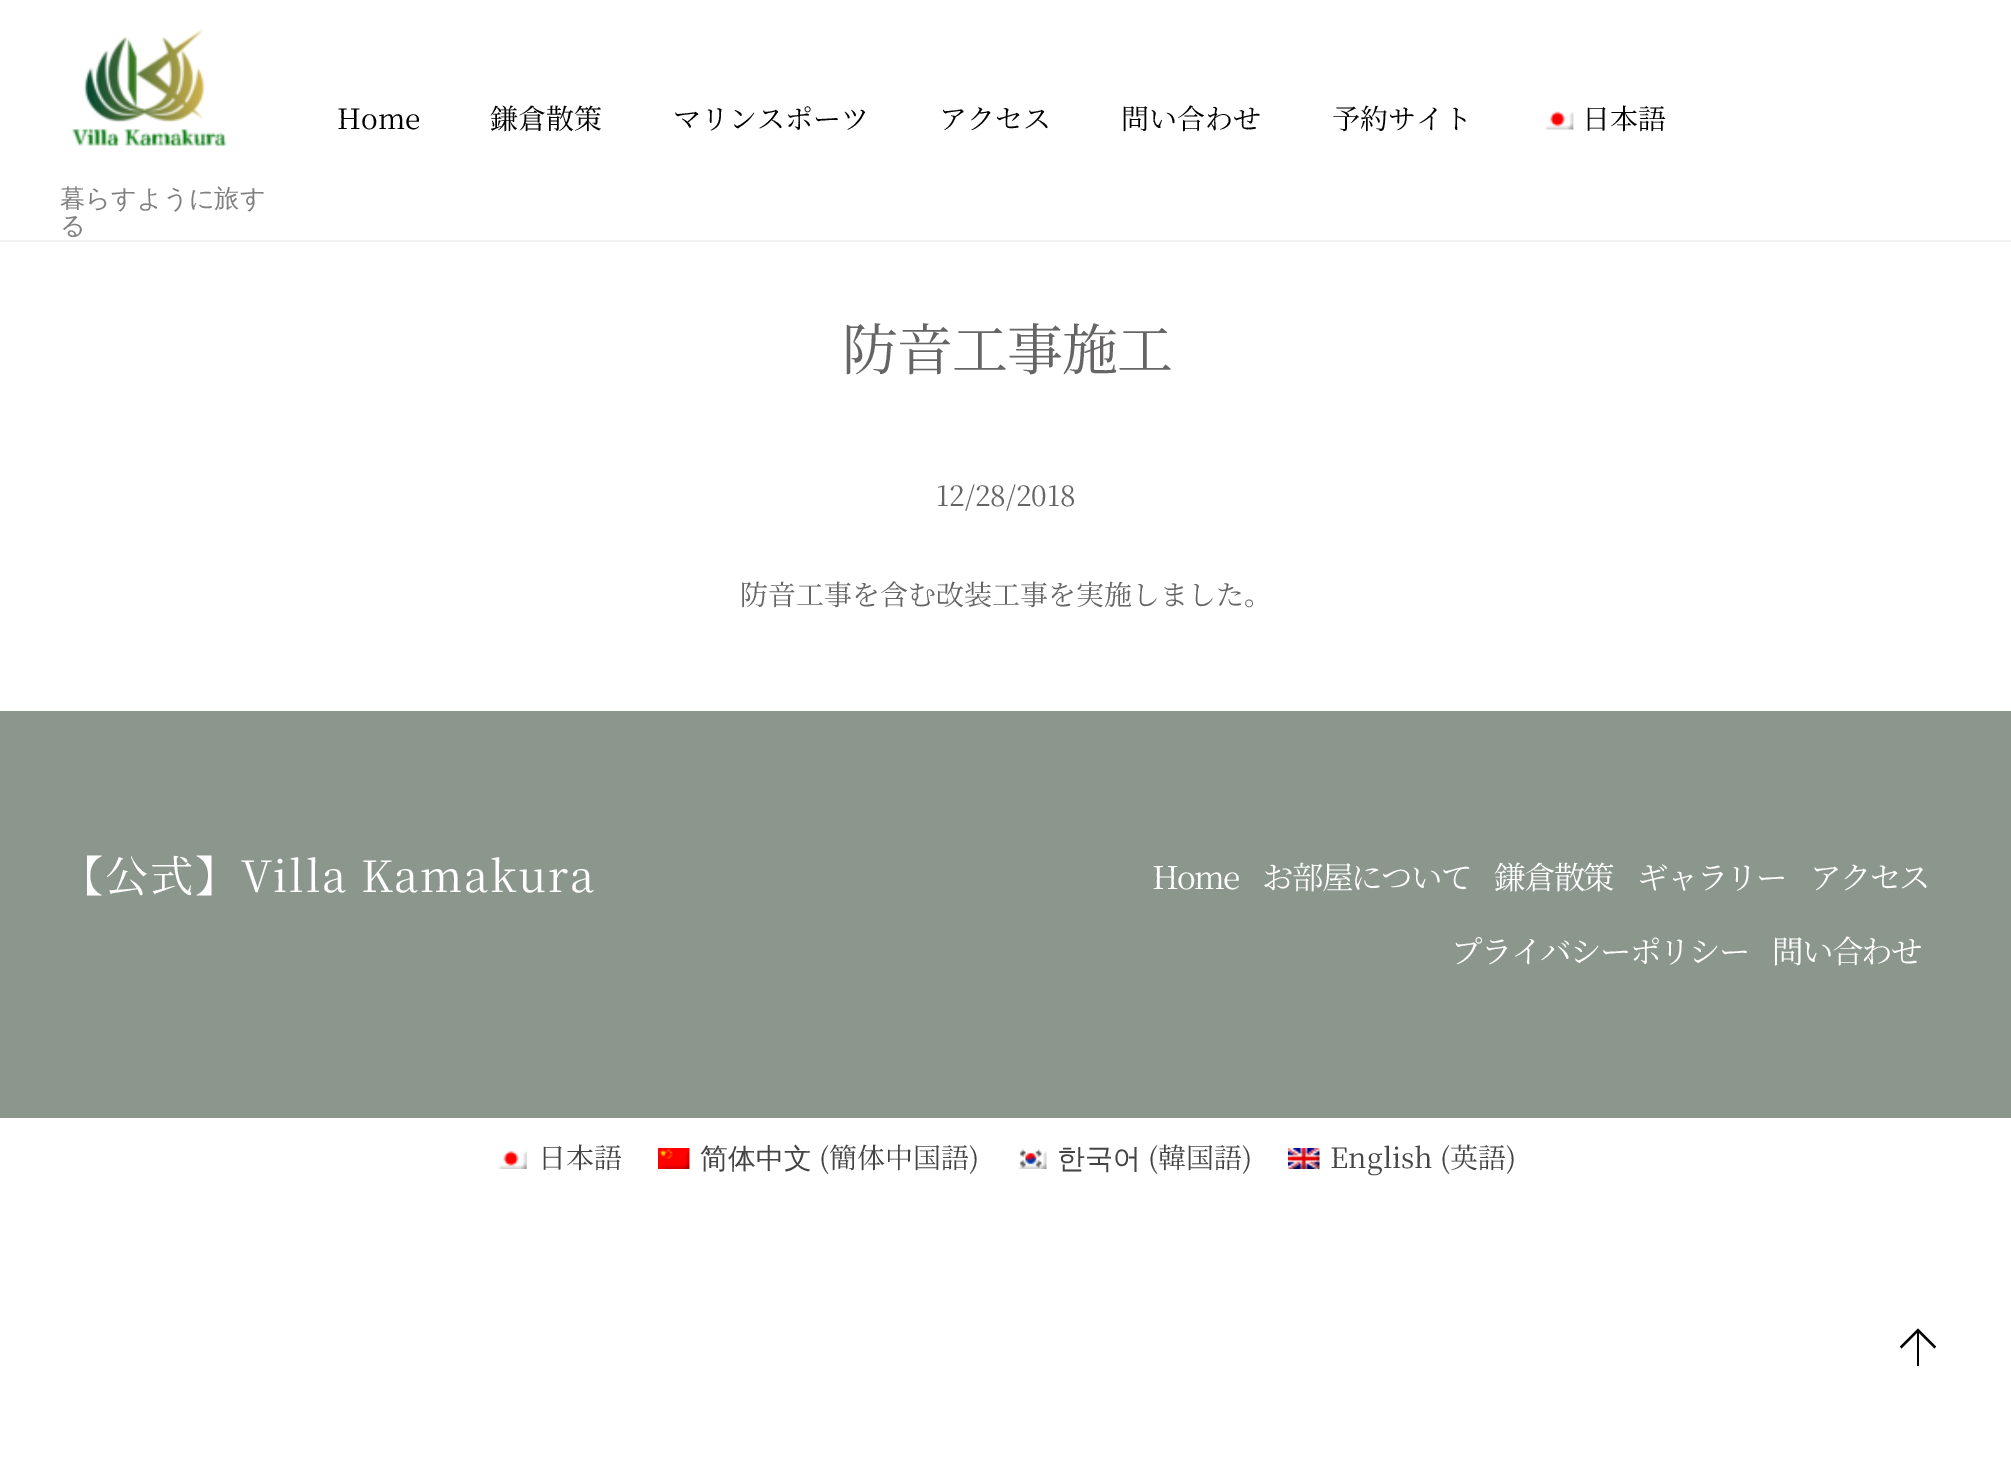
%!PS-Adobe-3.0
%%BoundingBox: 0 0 2011 1476
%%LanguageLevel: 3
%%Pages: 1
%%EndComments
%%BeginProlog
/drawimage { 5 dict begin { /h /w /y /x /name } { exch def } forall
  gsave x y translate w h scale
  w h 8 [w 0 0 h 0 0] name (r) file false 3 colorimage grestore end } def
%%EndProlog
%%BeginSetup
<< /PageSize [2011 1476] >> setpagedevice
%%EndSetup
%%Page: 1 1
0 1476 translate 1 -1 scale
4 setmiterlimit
1 setgray
0 0 2011 1476 rectfill
0.949 setgray
0 240 2011 2 rectfill
(images/1.raw) 1545 111 29 19 drawimage
(images/2.raw) 71 29 156 119 drawimage
0.545 0.588 0.553 setrgbcolor
0 711 2011 407 rectfill
0 setgray
newpath 1934.5 1348.5 moveto 1936 1346.5 lineto 1918 1328.5 lineto 1900 1346.5 lineto 1901.5 1348.5 lineto 1917 1333 lineto 1917 1366 lineto 1919 1366 lineto 1919 1333 lineto closepath fill
(images/3.raw) 498 1151 29 18 drawimage
(images/4.raw) 658 1148 32 21 drawimage
(images/5.raw) 1018 1149 29 20 drawimage
(images/6.raw) 1288 1148 32 21 drawimage
/NotoSerifJP-Regular [28 0 0 -28 0 0] selectfont
337 129 moveto (Home) show
490 129 moveto (鎌倉散策) show
673 129 moveto (マリンスポーツ) show
939 129 moveto (アクセス) show
1121 129 moveto (問い合わせ) show
1332 129 moveto (予約サイト) show
1582 129 moveto (日本語) show
/WenQuanYiZenHei-Medium [25.25 0 0 -25.25 0 0] selectfont
0.502 setgray
60 207 moveto (暮らすように旅す) show
60 234 moveto (る) show
/NotoSerifJP-Regular [56 0 0 -56 0 0] selectfont
0.4 0.392 0.392 setrgbcolor
842 370 moveto -1 0 (防音工事施工) ashow
/NotoSerifJP-Regular [28 0 0 -28 0 0] selectfont
936 506 moveto (12/28/2018) show
740 605 moveto (防音工事を含む改装工事を実施しました。) show
/NotoSerifJP-Regular [43.4 0 0 -43.4 0 0] selectfont
1 setgray
60 892 moveto 1.75 0 (【公式】Villa Kamakura) ashow
/NotoSerifJP-Regular [31.5 0 0 -31.5 0 0] selectfont
1152 889 moveto -1.75 0 (Home) ashow
1262 889 moveto -1.75 0 (お部屋について) ashow
1494 889 moveto -1.75 0 (鎌倉散策) ashow
1637 889 moveto -1.75 0 (ギャラリー) ashow
1810 889 moveto -1.75 0 (アクセス) ashow
1451 963 moveto -1.75 0 (プライバシーポリシー) ashow
1772 963 moveto -1.75 0 (問い合わせ) ashow
/NotoSerifJP-Regular [28 0 0 -28 0 0] selectfont
0.267 setgray
538 1168 moveto (日本語) show
/WenQuanYiZenHei-Medium [28 0 0 -28 0 0] selectfont
700 1168 moveto (简体中文) show
/NotoSerifJP-Regular [28 0 0 -28 0 0] selectfont
819 1168 moveto (\(簡体中国語\)) show
/WenQuanYiZenHei-Medium [28 0 0 -28 0 0] selectfont
1057 1168 moveto (한국어) show
/NotoSerifJP-Regular [28 0 0 -28 0 0] selectfont
1148 1168 moveto (\(韓国語\)) show
1330 1168 moveto (English \(英語\)) show
showpage
%%EOF
